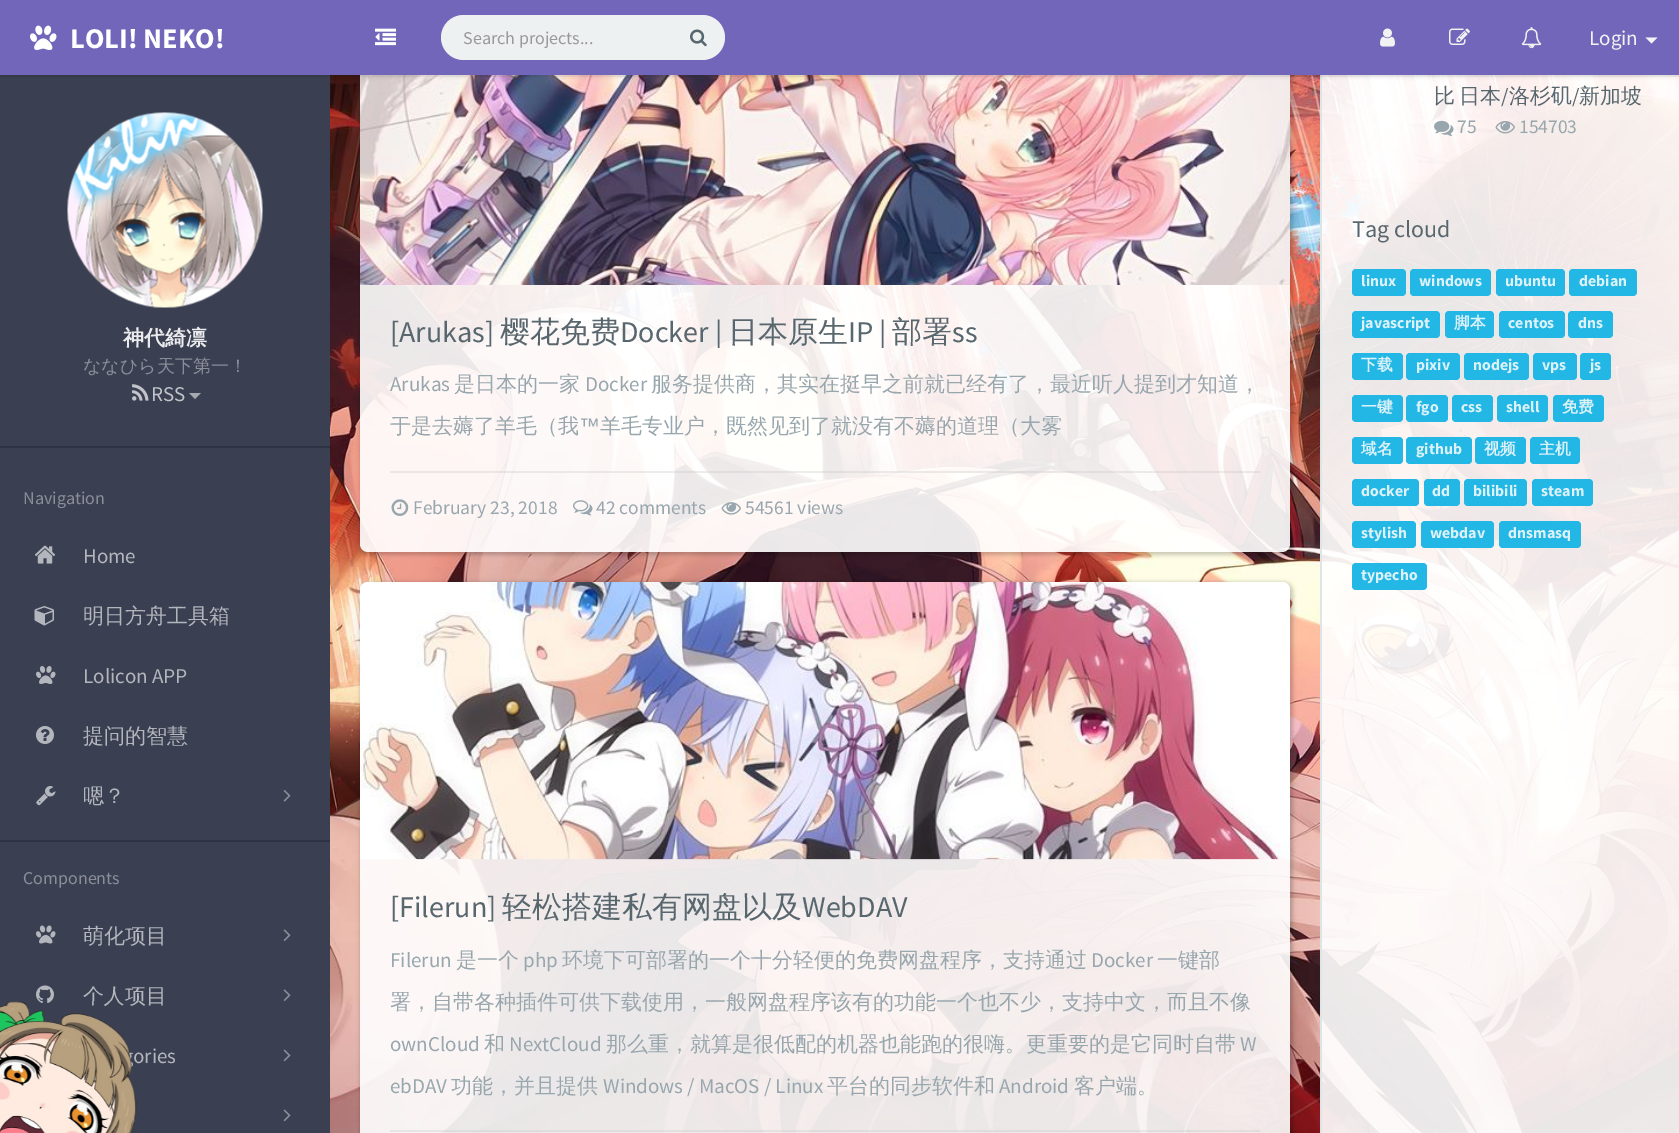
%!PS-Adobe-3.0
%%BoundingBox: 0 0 1679 1133
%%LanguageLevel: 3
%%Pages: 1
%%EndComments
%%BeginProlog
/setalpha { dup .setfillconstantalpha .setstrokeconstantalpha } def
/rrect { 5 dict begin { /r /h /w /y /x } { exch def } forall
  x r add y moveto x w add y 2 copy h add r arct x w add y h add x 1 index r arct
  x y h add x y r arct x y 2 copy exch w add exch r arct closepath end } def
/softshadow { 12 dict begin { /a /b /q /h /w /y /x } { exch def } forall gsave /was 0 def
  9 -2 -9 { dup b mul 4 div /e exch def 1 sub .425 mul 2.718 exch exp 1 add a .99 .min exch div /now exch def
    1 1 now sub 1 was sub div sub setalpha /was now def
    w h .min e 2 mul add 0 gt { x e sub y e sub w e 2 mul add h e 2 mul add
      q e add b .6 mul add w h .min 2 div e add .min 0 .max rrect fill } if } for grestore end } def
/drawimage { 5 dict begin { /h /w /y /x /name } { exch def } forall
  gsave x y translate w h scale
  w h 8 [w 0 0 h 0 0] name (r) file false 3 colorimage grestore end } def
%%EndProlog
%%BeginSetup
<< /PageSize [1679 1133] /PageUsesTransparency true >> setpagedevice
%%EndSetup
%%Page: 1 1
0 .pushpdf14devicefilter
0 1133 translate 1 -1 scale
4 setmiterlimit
1 setgray
0 0 1679 1133 rectfill
0.216 0.235 0.302 setrgbcolor
0 75 330 2 rectfill
(images/7.raw) 330 75 1349 1058 drawimage
0.227 0.247 0.318 setrgbcolor
0 77 330 1056 rectfill
0 setgray
-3 3 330 75 0 1.5 0.05 softshadow
0.447 0.4 0.729 setrgbcolor
0 0 330 75 rectfill
(images/1.raw) 30 25 27 25 drawimage
gsave
newpath 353 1 moveto 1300 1 lineto 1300 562 lineto 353 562 lineto closepath 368 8 moveto 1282 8 lineto 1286.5 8 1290 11.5 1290 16 curveto 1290 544 lineto 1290 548.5 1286.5 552 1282 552 curveto 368 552 lineto 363.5 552 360 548.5 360 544 curveto 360 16 lineto 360 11.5 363.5 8 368 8 curveto closepath eoclip newpath
0 setgray
360 8 933 547 9 2 0.2 softshadow
grestore
0.9 setalpha
1 setgray
360 8 930 544 8 rrect fill
1 setalpha
(images/21.raw) 360 75 930 210 drawimage
0.9 setalpha
1322 75 357 1058 rectfill
1 setalpha
0.871 0.898 0.906 setrgbcolor
1320 75 2 1058 rectfill
0.05 setalpha
0 setgray
330 75 1349 2 rectfill
1 setalpha
333 3 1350 75 0 1.5 0.05 softshadow
0.447 0.4 0.729 setrgbcolor
330 0 1349 75 rectfill
(images/2.raw) 375 28 21 18 drawimage
0.929 0.945 0.949 setrgbcolor
441 15 284 45 22.5 rrect fill
(images/3.raw) 690 29 17 18 drawimage
(images/4.raw) 1380 28 15 19 drawimage
(images/5.raw) 1449 28 21 17 drawimage
(images/6.raw) 1521 27 21 22 drawimage
0.957 0.953 0.976 setrgbcolor
newpath 1645.5 37.5 moveto 1657.5 37.5 lineto 1651.5 43.5 lineto closepath fill
(images/8.raw) 67 112 196 196 drawimage
(images/9.raw) 132 384 17 17 drawimage
0.651 0.659 0.694 setrgbcolor
newpath 189 393 moveto 201 393 lineto 195 399 lineto closepath fill
0.18 0.2 0.267 setrgbcolor
0 446 330 2 rectfill
(images/10.raw) 34 545 22 19 drawimage
(images/11.raw) 34 606 20 20 drawimage
(images/12.raw) 36 666 20 18 drawimage
(images/13.raw) 36 726 18 18 drawimage
(images/14.raw) 36 786 20 20 drawimage
(images/15.raw) 283 790 8 12 drawimage
0 840 330 2 rectfill
(images/16.raw) 36 925 20 19 drawimage
(images/17.raw) 283 929 8 12 drawimage
(images/18.raw) 36 985 18 18 drawimage
(images/17.raw) 283 989 8 12 drawimage
(images/19.raw) 283 1049 8 13 drawimage
(images/19.raw) 283 1109 8 13 drawimage
0.27 setalpha
0.733 setgray
390 471 870 2 rectfill
1 setalpha
(images/22.raw) 391 499 18 17 drawimage
(images/23.raw) 573 500 20 16 drawimage
(images/24.raw) 721 502 20 13 drawimage
gsave
newpath 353 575 moveto 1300 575 lineto 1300 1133 lineto 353 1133 lineto closepath 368 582 moveto 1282 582 lineto 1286.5 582 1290 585.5 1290 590 curveto 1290 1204 lineto 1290 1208.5 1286.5 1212 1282 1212 curveto 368 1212 lineto 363.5 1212 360 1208.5 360 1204 curveto 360 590 lineto 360 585.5 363.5 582 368 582 curveto closepath eoclip newpath
0 setgray
360 582 933 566 9 2 0.2 softshadow
grestore
0.9 setalpha
1 setgray
360 582 930 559 8 rrect fill
1 setalpha
(images/25.raw) 360 582 930 278 drawimage
0.27 setalpha
0.733 setgray
390 1130 870 2 rectfill
1 setalpha
(images/26.raw) 1434 120 20 17 drawimage
(images/27.raw) 1495 121 20 13 drawimage
0.137 0.718 0.898 setrgbcolor
1352 269 54 27 4 rrect fill
1410 269 81 27 4 rrect fill
1496 269 69 27 4 rrect fill
1569 269 68 27 4 rrect fill
1352 311 88 27 4 rrect fill
1445 311 49 27 4 rrect fill
1499 311 66 27 4 rrect fill
1568 311 45 27 4 rrect fill
1352 353 51 27 4 rrect fill
1406 353 54 27 4 rrect fill
1464 353 65 27 4 rrect fill
1533 353 44 27 4 rrect fill
1580 353 31 27 4 rrect fill
1352 395 51 27 4 rrect fill
1406 395 42 27 4 rrect fill
1452 395 41 27 4 rrect fill
1497 395 51 27 4 rrect fill
1553 395 51 27 4 rrect fill
1352 437 51 27 4 rrect fill
1406 437 66 27 4 rrect fill
1475 437 51 27 4 rrect fill
1530 437 50 27 4 rrect fill
1352 479 67 27 4 rrect fill
1424 479 36 27 4 rrect fill
1464 479 63 27 4 rrect fill
1532 479 61 27 4 rrect fill
1352 521 64 27 4 rrect fill
1421 521 73 27 4 rrect fill
1499 521 82 27 4 rrect fill
1352 563 75 27 4 rrect fill
/SourceSansPro-Bold [28.5 0 0 -28.5 0 0] selectfont
1 setgray
70 48 moveto (LOLI! NEKO!) show
/SourceSansPro-Regular [18 0 0 -18 0 0] selectfont
0.6 setgray
463 44 moveto (Search projects...) show
/SourceSansPro-Regular [21 0 0 -21 0 0] selectfont
0.949 setgray
1589 45 moveto (Login) show
/WenQuanYiZenHei-Bold [21 0 0 -21 0 0] selectfont
0.918 0.922 0.929 setrgbcolor
123 345 moveto (神代綺凛) show
/WenQuanYiZenHei-Medium [18 0 0 -18 0 0] selectfont
0.545 0.557 0.6 setrgbcolor
83 372 moveto (ななひら天下第一！) show
/SourceSansPro-Regular [21 0 0 -21 0 0] selectfont
0.757 0.765 0.788 setrgbcolor
151 401 moveto (RSS) show
/SourceSansPro-Regular [18 0 0 -18 0 0] selectfont
0.545 0.557 0.6 setrgbcolor
23 504 moveto (Navigation) show
/SourceSansPro-Regular [21 0 0 -21 0 0] selectfont
0.706 0.714 0.741 setrgbcolor
83 563 moveto (Home) show
/WenQuanYiZenHei-Medium [21 0 0 -21 0 0] selectfont
83 623 moveto (明日方舟工具箱) show
/SourceSansPro-Regular [21 0 0 -21 0 0] selectfont
83 683 moveto (Lolicon APP) show
/WenQuanYiZenHei-Medium [21 0 0 -21 0 0] selectfont
83 743 moveto (提问的智慧) show
83 803 moveto (嗯？) show
/SourceSansPro-Regular [18 0 0 -18 0 0] selectfont
0.545 0.557 0.6 setrgbcolor
23 884 moveto (Components) show
/WenQuanYiZenHei-Medium [21 0 0 -21 0 0] selectfont
0.706 0.714 0.741 setrgbcolor
83 943 moveto (萌化项目) show
83 1003 moveto (个人项目) show
/SourceSansPro-Regular [21 0 0 -21 0 0] selectfont
133 1063 moveto (ories) show
(images/20.raw) 0 1001 137 132 drawimage
/SourceSansPro-Regular [30 0 0 -30 0 0] selectfont
0.345 0.4 0.431 setrgbcolor
390 342 moveto ([Arukas]) show
/WenQuanYiZenHei-Medium [30 0 0 -30 0 0] selectfont
500 342 moveto (樱花免费) show
gsave
390 315 870 33 rectclip
/SourceSansPro-Regular [30 0 0 -30 0 0] selectfont
620 342 moveto (Docker |) show
grestore
728 342 moveto (日本原生) show
gsave
390 315 870 33 rectclip
/SourceSansPro-Regular [30 0 0 -30 0 0] selectfont
848 342 moveto (IP |) show
grestore
892 342 moveto (部署) show
/SourceSansPro-Regular [30 0 0 -30 0 0] selectfont
952 342 moveto (ss) show
/SourceSansPro-Regular [21 0 0 -21 0 0] selectfont
0.596 0.651 0.678 setrgbcolor
390 391 moveto (Arukas) show
/WenQuanYiZenHei-Medium [21 0 0 -21 0 0] selectfont
454 391 moveto (是日本的一家) show
/SourceSansPro-Regular [21 0 0 -21 0 0] selectfont
585 391 moveto (Docker) show
/WenQuanYiZenHei-Medium [21 0 0 -21 0 0] selectfont
651 391 moveto (服务提供商，其实在挺早之前就已经有了，最近听人提到才知道，) show
390 433 moveto (于是去薅了羊毛（我) show
/LiberationSans-Regular [21 0 0 -21 0 0] selectfont
579 433 moveto (™) show
/WenQuanYiZenHei-Medium [21 0 0 -21 0 0] selectfont
600 433 moveto (羊毛专业户，既然见到了就没有不薅的道理（大雾) show
/SourceSansPro-Regular [19.5 0 0 -19.5 0 0] selectfont
413 514 moveto (February 23, 2018) show
596 514 moveto (42 comments) show
745 514 moveto (54561 views) show
/SourceSansPro-Regular [30 0 0 -30 0 0] selectfont
0.345 0.4 0.431 setrgbcolor
390 917 moveto ([Filerun]) show
/WenQuanYiZenHei-Medium [30 0 0 -30 0 0] selectfont
502 917 moveto (轻松搭建私有网盘以及) show
/SourceSansPro-Regular [30 0 0 -30 0 0] selectfont
802 917 moveto (WebDAV) show
/SourceSansPro-Regular [21 0 0 -21 0 0] selectfont
0.596 0.651 0.678 setrgbcolor
390 967 moveto (Filerun) show
/WenQuanYiZenHei-Medium [21 0 0 -21 0 0] selectfont
456 967 moveto (是一个) show
/SourceSansPro-Regular [21 0 0 -21 0 0] selectfont
523 967 moveto (php) show
/WenQuanYiZenHei-Medium [21 0 0 -21 0 0] selectfont
562 967 moveto (环境下可部署的一个十分轻便的免费网盘程序，支持通过) show
/SourceSansPro-Regular [21 0 0 -21 0 0] selectfont
1091 967 moveto (Docker) show
/WenQuanYiZenHei-Medium [21 0 0 -21 0 0] selectfont
1157 967 moveto (一键部) show
390 1009 moveto (署，自带各种插件可供下载使用，一般网盘程序该有的功能一个也不少，支持中文，而且不像) show
/SourceSansPro-Regular [21 0 0 -21 0 0] selectfont
390 1051 moveto (ownCloud) show
/WenQuanYiZenHei-Medium [21 0 0 -21 0 0] selectfont
484 1051 moveto (和) show
/SourceSansPro-Regular [21 0 0 -21 0 0] selectfont
509 1051 moveto (NextCloud) show
/WenQuanYiZenHei-Medium [21 0 0 -21 0 0] selectfont
606 1051 moveto (那么重，就算是很低配的机器也能跑的很嗨。更重要的是它同时自带) show
/SourceSansPro-Regular [21 0 0 -21 0 0] selectfont
1240 1051 moveto (W) show
390 1093 moveto (ebDAV) show
/WenQuanYiZenHei-Medium [21 0 0 -21 0 0] selectfont
451 1093 moveto (功能，并且提供) show
/SourceSansPro-Regular [21 0 0 -21 0 0] selectfont
603 1093 moveto (Windows / MacOS / Linux) show
/WenQuanYiZenHei-Medium [21 0 0 -21 0 0] selectfont
827 1093 moveto (平台的同步软件和) show
/SourceSansPro-Regular [21 0 0 -21 0 0] selectfont
999 1093 moveto (Android) show
/WenQuanYiZenHei-Medium [21 0 0 -21 0 0] selectfont
1074 1093 moveto (客户端。) show
0.345 0.4 0.431 setrgbcolor
1434 103 moveto -2 0 32 (比 日本) widthshow
/SourceSansPro-Regular [21 0 0 -21 0 0] selectfont
1501 103 moveto (/) show
/WenQuanYiZenHei-Medium [21 0 0 -21 0 0] selectfont
1509 103 moveto (洛杉矶) show
/SourceSansPro-Regular [21 0 0 -21 0 0] selectfont
1572 103 moveto (/) show
/WenQuanYiZenHei-Medium [21 0 0 -21 0 0] selectfont
1579 103 moveto (新加坡) show
/SourceSansPro-Regular [19.5 0 0 -19.5 0 0] selectfont
0.596 0.651 0.678 setrgbcolor
1457 133 moveto (75) show
1519 133 moveto (154703) show
/SourceSansPro-Regular [24 0 0 -24 0 0] selectfont
0.345 0.4 0.431 setrgbcolor
1352 237 moveto (Tag cloud) show
/SourceSansPro-Bold [15.75 0 0 -15.75 0 0] selectfont
0.863 0.949 0.973 setrgbcolor
1361 286 moveto (linux) show
1419 286 moveto (windows) show
1505 286 moveto (ubuntu) show
1579 286 moveto (debian) show
1361 328 moveto (javascript) show
/WenQuanYiZenHei-Bold [15.75 0 0 -15.75 0 0] selectfont
1454 328 moveto (脚本) show
/SourceSansPro-Bold [15.75 0 0 -15.75 0 0] selectfont
1508 328 moveto (centos) show
1578 328 moveto (dns) show
/WenQuanYiZenHei-Bold [15.75 0 0 -15.75 0 0] selectfont
1361 370 moveto (下载) show
/SourceSansPro-Bold [15.75 0 0 -15.75 0 0] selectfont
1416 370 moveto (pixiv) show
1473 370 moveto (nodejs) show
1542 370 moveto (vps) show
1590 370 moveto (js) show
/WenQuanYiZenHei-Bold [15.75 0 0 -15.75 0 0] selectfont
1361 412 moveto (一键) show
/SourceSansPro-Bold [15.75 0 0 -15.75 0 0] selectfont
1416 412 moveto (fgo) show
1461 412 moveto (css) show
1506 412 moveto (shell) show
/WenQuanYiZenHei-Bold [15.75 0 0 -15.75 0 0] selectfont
1562 412 moveto (免费) show
1361 454 moveto (域名) show
/SourceSansPro-Bold [15.75 0 0 -15.75 0 0] selectfont
1416 454 moveto (github) show
/WenQuanYiZenHei-Bold [15.75 0 0 -15.75 0 0] selectfont
1484 454 moveto (视频) show
1539 454 moveto (主机) show
/SourceSansPro-Bold [15.75 0 0 -15.75 0 0] selectfont
1361 496 moveto (docker) show
1432 496 moveto (dd) show
1473 496 moveto (bilibili) show
1541 496 moveto (steam) show
1361 538 moveto (stylish) show
1430 538 moveto (webdav) show
1508 538 moveto (dnsmasq) show
1361 580 moveto (typecho) show
.poppdf14devicefilter showpage
%%EOF
